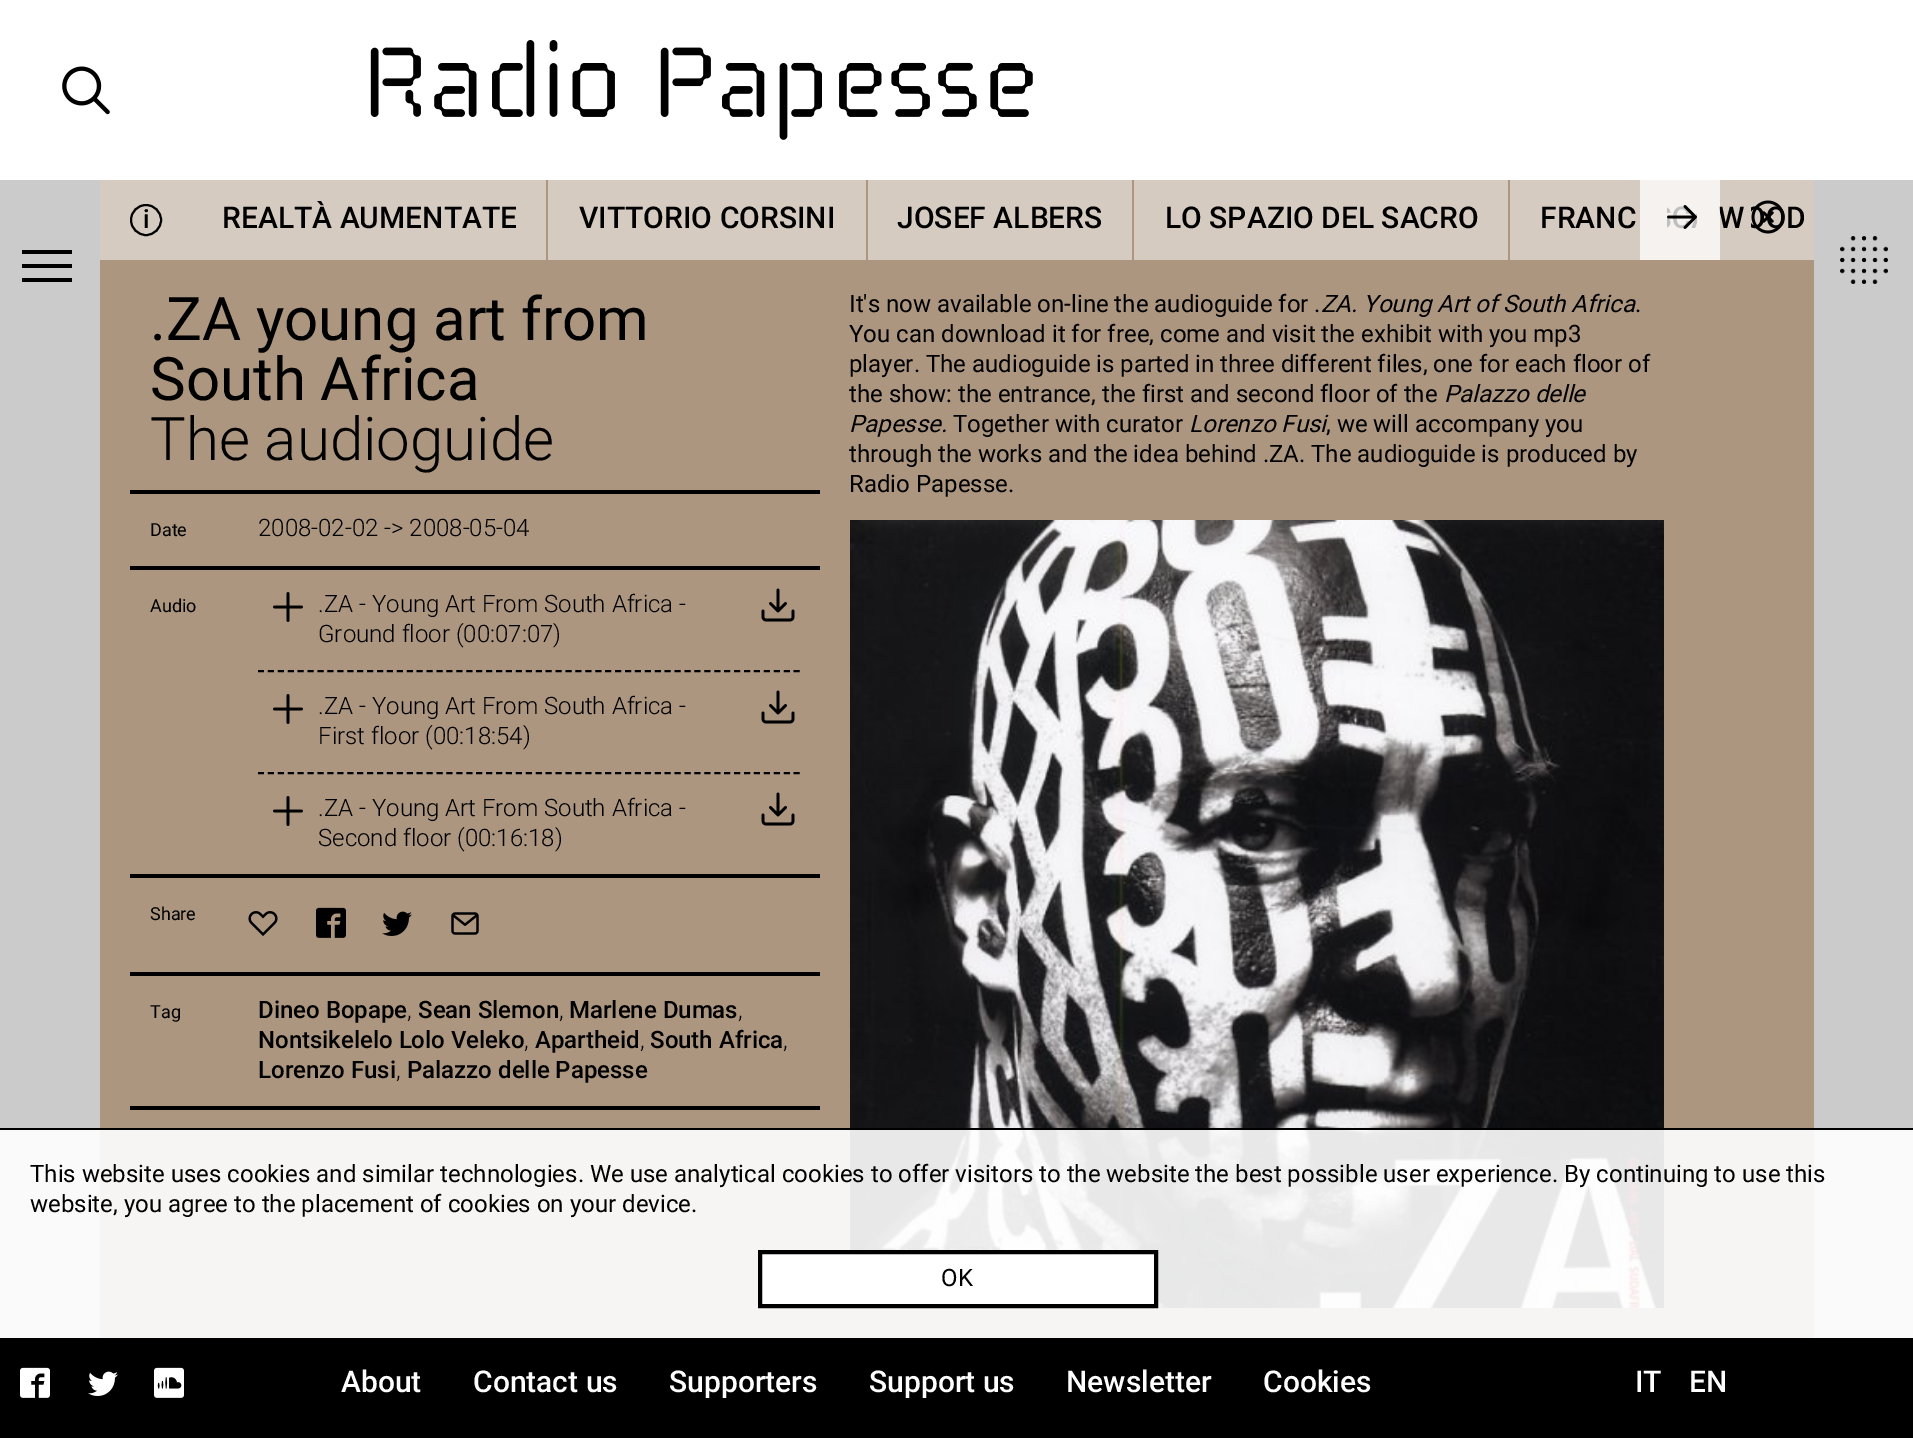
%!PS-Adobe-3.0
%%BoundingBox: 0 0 1913 1438
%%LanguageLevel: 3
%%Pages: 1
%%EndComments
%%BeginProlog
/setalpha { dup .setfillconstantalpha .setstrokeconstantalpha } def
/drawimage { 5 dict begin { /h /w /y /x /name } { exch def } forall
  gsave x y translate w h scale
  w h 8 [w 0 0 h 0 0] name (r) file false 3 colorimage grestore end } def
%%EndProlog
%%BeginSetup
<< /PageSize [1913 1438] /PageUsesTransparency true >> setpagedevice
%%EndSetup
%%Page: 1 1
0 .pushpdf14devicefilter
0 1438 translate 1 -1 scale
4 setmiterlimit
0.675 0.588 0.502 setrgbcolor
0 0 1913 1438 rectfill
1 setgray
0 0 1913 180 rectfill
(images/1.raw) 62 66 48 49 drawimage
(images/2.raw) 370 40 663 100 drawimage
0.796 setgray
0 180 100 1158 rectfill
0 setgray
22 250 50 4 rectfill
22 264 50 4 rectfill
22 278 50 4 rectfill
0.839 0.796 0.753 setrgbcolor
100 180 1714 80 rectfill
0 setgray
2 setlinewidth
newpath 146 220 15 0 360 arc closepath stroke
0.675 0.588 0.502 setrgbcolor
546 180 2 80 rectfill
866 180 2 80 rectfill
1132 180 2 80 rectfill
1508 180 2 80 rectfill
(images/4.raw) 1751 200 34 34 drawimage
0 setgray
130 490 690 4 rectfill
130 566 690 4 rectfill
130 874 690 4 rectfill
[6 3.92] 0 setdash
newpath 258 671 moveto 800 671 lineto stroke
(images/5.raw) 273 592 30 30 drawimage
(images/6.raw) 761 588 34 34 drawimage
newpath 258 773 moveto 800 773 lineto stroke
(images/5.raw) 273 694 30 30 drawimage
(images/6.raw) 761 690 34 34 drawimage
(images/5.raw) 273 796 30 30 drawimage
(images/6.raw) 761 792 34 34 drawimage
130 972 690 4 rectfill
(images/7.raw) 248 911 30 25 drawimage
(images/8.raw) 316 907 30 31 drawimage
(images/9.raw) 382 911 30 25 drawimage
(images/10.raw) 451 912 28 23 drawimage
130 1106 690 4 rectfill
(images/11.raw) 850 520 814 788 drawimage
0.796 setgray
1814 180 99 1158 rectfill
(images/12.raw) 1840 236 48 48 drawimage
0 setgray
0 1338 1913 100 rectfill
(images/13.raw) 20 1367 30 31 drawimage
(images/14.raw) 88 1371 30 25 drawimage
(images/15.raw) 154 1367 30 31 drawimage
0.9 setalpha
1 setgray
0 1130 1913 208 rectfill
1 setalpha
0 setgray
0 1128 1913 2 rectfill
1 setgray
newpath 760 1252 moveto 1156 1252 lineto 1156 1306 lineto 760 1306 lineto closepath gsave fill grestore
0 setgray
4 setlinewidth
[] 0 setdash
stroke
/Roboto-Medium [26 0 0 -26 0 0] selectfont
143 228 moveto (i) show
/Roboto-Medium [30 0 0 -30 0 0] selectfont
222 228 moveto (REALTÀ AUMENTATE) show
579 228 moveto (VITTORIO CORSINI) show
897 228 moveto (JOSEF ALBERS) show
1165 228 moveto (LO SPAZIO DEL SACRO) show
1540 228 moveto (FRANC) show
1718 228 moveto (W) show
0.75 setalpha
1 setgray
1640 180 80 80 rectfill
1 setalpha
(images/3.raw) 1667 205 30 24 drawimage
0 setgray
1786 228 moveto (D) show
/Roboto-Regular [60 0 0 -60 0 0] selectfont
150 340 moveto (.ZA young art from) show
150 400 moveto (South Africa) show
/Roboto-Light [60 0 0 -60 0 0] selectfont
150 460 moveto (The audioguide) show
/Roboto-Regular [18 0 0 -18 0 0] selectfont
150 536 moveto (Date) show
/Roboto-Light [24 0 0 -24 0 0] selectfont
258 536 moveto (2008-02-02 -> 2008-05-04) show
/Roboto-Regular [18 0 0 -18 0 0] selectfont
150 612 moveto (Audio) show
/Roboto-Light [24 0 0 -24 0 0] selectfont
318 612 moveto (.ZA - Young Art From South Africa -) show
318 642 moveto (Ground floor \(00:07:07\)) show
318 714 moveto (.ZA - Young Art From South Africa -) show
318 744 moveto (First floor \(00:18:54\)) show
318 816 moveto (.ZA - Young Art From South Africa -) show
318 846 moveto (Second floor \(00:16:18\)) show
/Roboto-Regular [18 0 0 -18 0 0] selectfont
150 920 moveto (Share) show
150 1018 moveto (Tag) show
/Roboto-Medium [24 0 0 -24 0 0] selectfont
258 1018 moveto (Dineo Bopape) show
/Roboto-Light [24 0 0 -24 0 0] selectfont
407 1018 moveto (,) show
/Roboto-Medium [24 0 0 -24 0 0] selectfont
418 1018 moveto (Sean Slemon) show
/Roboto-Light [24 0 0 -24 0 0] selectfont
559 1018 moveto (,) show
/Roboto-Medium [24 0 0 -24 0 0] selectfont
569 1018 moveto (Marlene Dumas) show
/Roboto-Light [24 0 0 -24 0 0] selectfont
738 1018 moveto (,) show
/Roboto-Medium [24 0 0 -24 0 0] selectfont
258 1048 moveto (Nontsikelelo Lolo Veleko) show
/Roboto-Light [24 0 0 -24 0 0] selectfont
524 1048 moveto (,) show
/Roboto-Medium [24 0 0 -24 0 0] selectfont
535 1048 moveto (Apartheid) show
/Roboto-Light [24 0 0 -24 0 0] selectfont
640 1048 moveto (,) show
/Roboto-Medium [24 0 0 -24 0 0] selectfont
650 1048 moveto (South Africa) show
/Roboto-Light [24 0 0 -24 0 0] selectfont
783 1048 moveto (,) show
/Roboto-Medium [24 0 0 -24 0 0] selectfont
258 1078 moveto (Lorenzo Fusi) show
/Roboto-Light [24 0 0 -24 0 0] selectfont
396 1078 moveto (,) show
/Roboto-Medium [24 0 0 -24 0 0] selectfont
407 1078 moveto (Palazzo delle Papesse) show
/Roboto-Regular [24 0 0 -24 0 0] selectfont
849 312 moveto (It's now available on-line the audioguide for .) show
/Roboto-Italic [24 0 0 -24 0 0] selectfont
1321 312 moveto (ZA. Young Art of South Africa) show
/Roboto-Regular [24 0 0 -24 0 0] selectfont
1635 312 moveto (.) show
849 342 moveto (You can download it for free, come and visit the exhibit with you mp3) show
849 372 moveto (player. The audioguide is parted in three different files, one for each floor of) show
849 402 moveto (the show: the entrance, the first and second floor of the) show
/Roboto-Italic [24 0 0 -24 0 0] selectfont
1444 402 moveto (Palazzo delle) show
849 432 moveto (Papesse.) show
/Roboto-Regular [24 0 0 -24 0 0] selectfont
953 432 moveto (Together with curator) show
/Roboto-Italic [24 0 0 -24 0 0] selectfont
1189 432 moveto (Lorenzo Fusi) show
/Roboto-Regular [24 0 0 -24 0 0] selectfont
1326 432 moveto (, we will accompany you) show
849 462 moveto (through the works and the idea behind .ZA. The audioguide is produced by) show
849 492 moveto (Radio Papesse.) show
/Roboto-Medium [30 0 0 -30 0 0] selectfont
1 setgray
341 1392 moveto (About) show
473 1392 moveto (Contact us) show
669 1392 moveto (Supporters) show
869 1392 moveto (Support us) show
1066 1392 moveto (Newsletter) show
1263 1392 moveto (Cookies) show
1635 1392 moveto (IT) show
1689 1392 moveto (EN) show
/Roboto-Regular [24 0 0 -24 0 0] selectfont
0 setgray
30 1182 moveto (This website uses cookies and similar technologies. We use analytical cookies to offer visitors to the website the best possible user experience. By continuing to use this) show
30 1212 moveto (website, you agree to the placement of cookies on your device.) show
941 1286 moveto (OK) show
.poppdf14devicefilter showpage
%%EOF
